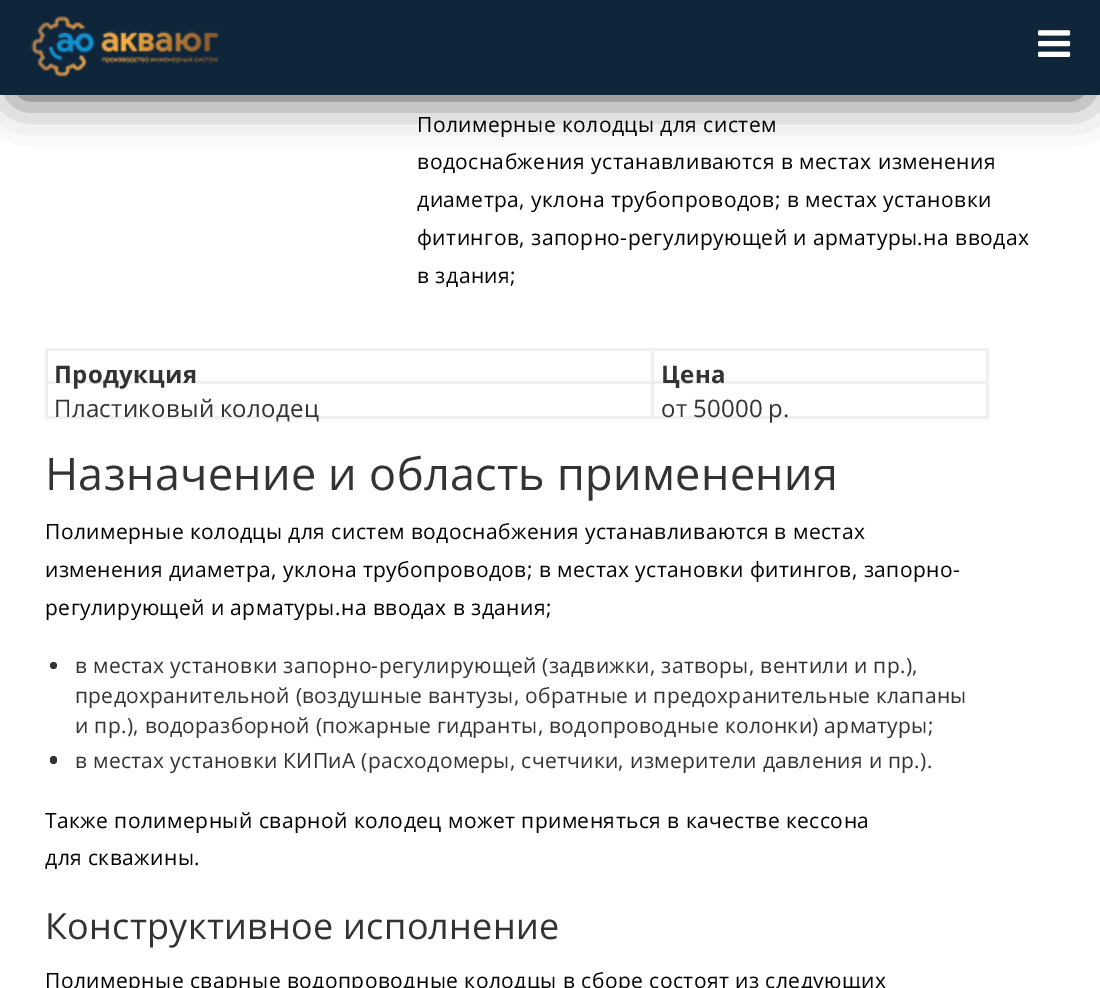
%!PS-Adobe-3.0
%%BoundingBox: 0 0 1100 988
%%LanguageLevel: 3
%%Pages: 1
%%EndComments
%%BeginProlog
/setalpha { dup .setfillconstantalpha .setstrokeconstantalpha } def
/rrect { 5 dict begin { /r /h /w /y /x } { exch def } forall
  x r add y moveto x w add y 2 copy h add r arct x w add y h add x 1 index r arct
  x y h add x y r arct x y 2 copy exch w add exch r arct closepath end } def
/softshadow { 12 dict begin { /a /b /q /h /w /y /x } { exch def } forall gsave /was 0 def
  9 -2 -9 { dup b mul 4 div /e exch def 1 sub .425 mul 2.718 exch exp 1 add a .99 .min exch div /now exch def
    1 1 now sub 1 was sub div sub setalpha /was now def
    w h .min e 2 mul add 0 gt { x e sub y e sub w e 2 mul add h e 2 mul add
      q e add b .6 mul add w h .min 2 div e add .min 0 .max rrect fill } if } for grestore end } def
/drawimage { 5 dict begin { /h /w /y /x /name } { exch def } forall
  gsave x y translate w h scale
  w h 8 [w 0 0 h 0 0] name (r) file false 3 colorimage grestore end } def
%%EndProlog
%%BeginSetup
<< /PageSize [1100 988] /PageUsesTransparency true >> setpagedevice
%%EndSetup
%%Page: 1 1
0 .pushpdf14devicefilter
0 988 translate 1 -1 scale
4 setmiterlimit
1 setgray
0 0 1100 988 rectfill
0 setgray
18 38 1065 58 0 22.5 0.75 softshadow
0.059 0.149 0.227 setrgbcolor
0 0 1100 95 rectfill
(images/1.raw) 31 16 189 61 drawimage
(images/2.raw) 1038 30 33 27 drawimage
0.937 setgray
651 348 338 3 rectfill
651 381 338 3 rectfill
986 381 3 38 rectfill
651 416 338 3 rectfill
651 381 3 38 rectfill
45 381 609 3 rectfill
651 348 3 36 rectfill
45 348 609 3 rectfill
45 416 609 3 rectfill
45 381 3 38 rectfill
45 348 3 36 rectfill
986 348 3 36 rectfill
0.2 setgray
newpath 53.5 665.5 3.5 0 360 arc closepath fill
50 756 7 8 3.5 rrect fill
/OpenSans-Regular [21 0 0 -21 0 0] selectfont
0 setgray
417 132 moveto 0.45 0 (Полимерные колодцы для систем) ashow
417 169 moveto 0.45 0 (водоснабжения устанавливаются в местах изменения) ashow
417 207 moveto 0.45 0 (диаметра, уклона трубопроводов; в местах установки) ashow
417 245 moveto 0.45 0 (фитингов, запорно-регулирующей и арматуры.на вводах) ashow
417 283 moveto 0.45 0 (в здания;) ashow
/OpenSans-Bold [24 0 0 -24 0 0] selectfont
0.2 setgray
54 383 moveto 0.3 0 (Продукция) ashow
661 383 moveto 0.3 0 (Цена) ashow
/OpenSans-Regular [24 0 0 -24 0 0] selectfont
54 417 moveto -1 0 32 0.3 0 (Пластиковый колодец) awidthshow
661 417 moveto -1 0 32 0.3 0 (от 50000 р.) awidthshow
/OpenSans-Regular [45 0 0 -45 0 0] selectfont
45 490 moveto 0.3 0 (Назначение и область применения) ashow
/OpenSans-Regular [21 0 0 -21 0 0] selectfont
0 setgray
45 539 moveto 0.45 0 (Полимерные колодцы для систем водоснабжения устанавливаются в местах) ashow
45 577 moveto 0.45 0 (изменения диаметра, уклона трубопроводов; в местах установки фитингов, запорно-) ashow
45 615 moveto 0.45 0 (регулирующей и арматуры.на вводах в здания;) ashow
0.2 setgray
75 673 moveto 0.3 0 (в местах установки запорно-регулирующей \(задвижки, затворы, вентили и пр.\),) ashow
75 703 moveto 0.3 0 (предохранительной \(воздушные вантузы, обратные и предохранительные клапаны) ashow
75 733 moveto 0.3 0 (и пр.\), водоразборной \(пожарные гидранты, водопроводные колонки\) арматуры;) ashow
75 768 moveto 0.3 0 (в местах установки КИПиА \(расходомеры, счетчики, измерители давления и пр.\).) ashow
0 setgray
45 828 moveto 0.45 0 (Также полимерный сварной колодец может применяться в качестве кессона) ashow
45 865 moveto 0.45 0 (для скважины.) ashow
/OpenSans-Regular [36 0 0 -36 0 0] selectfont
0.2 setgray
45 939 moveto 0.3 0 (Конструктивное исполнение) ashow
/OpenSans-Regular [21 0 0 -21 0 0] selectfont
0 setgray
45 988 moveto 0.45 0 (Полимерные сварные водопроводные колодцы в сборе состоят из следующих) ashow
.poppdf14devicefilter showpage
%%EOF
